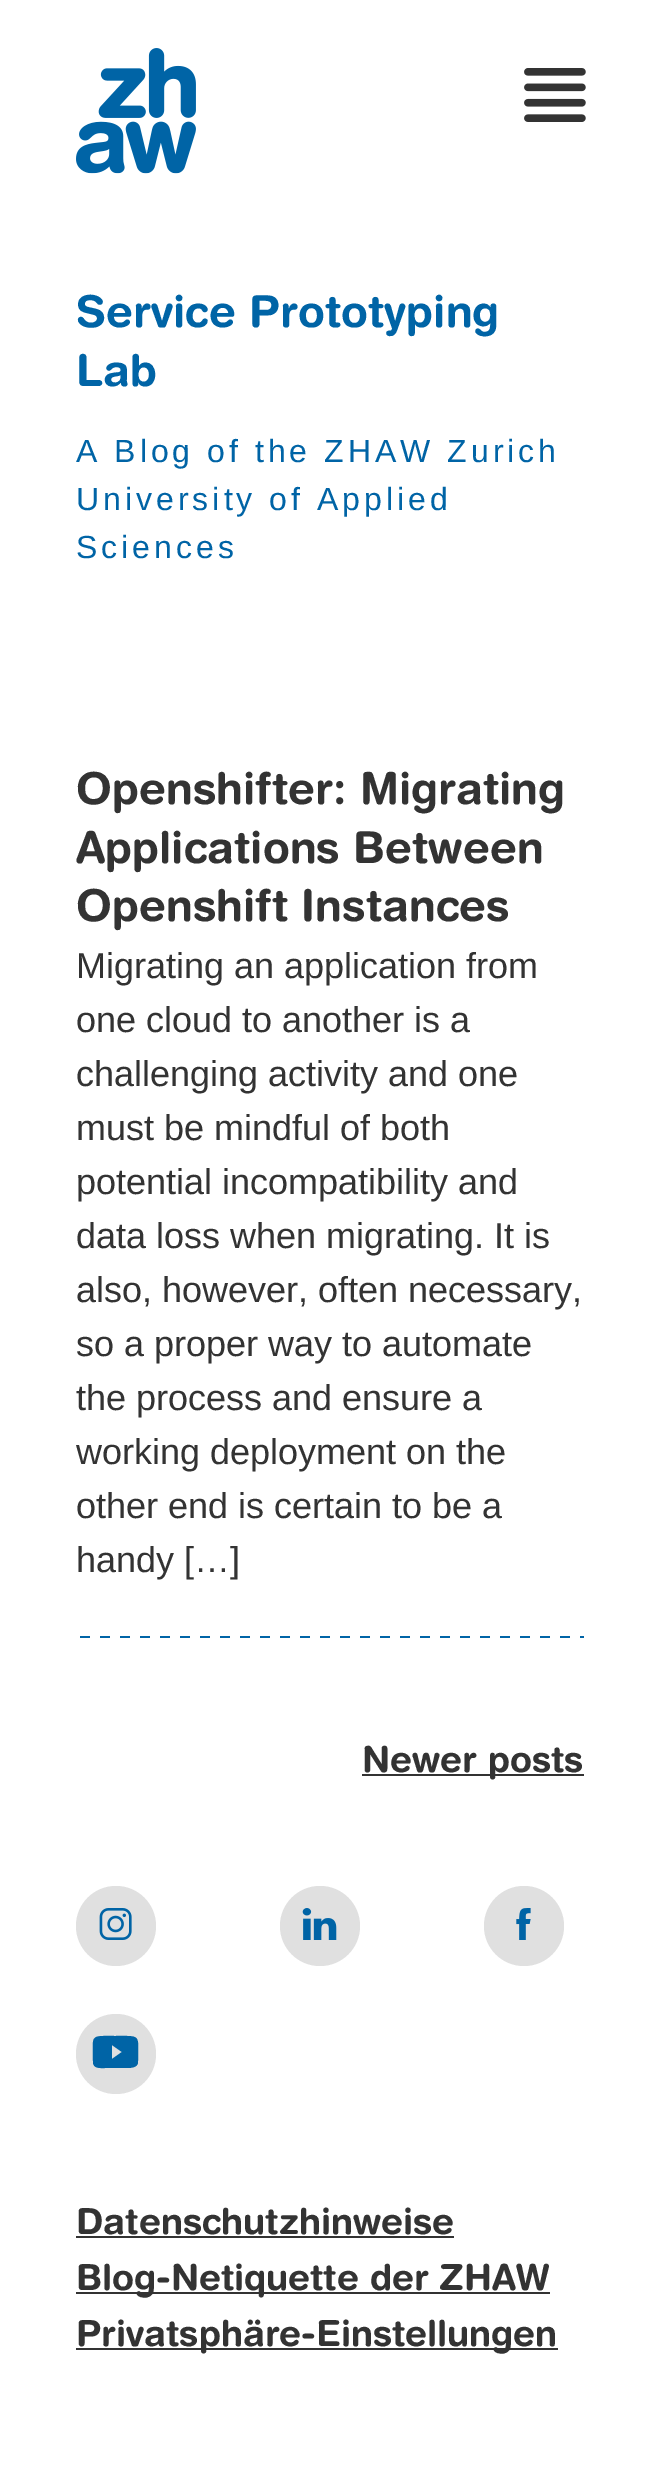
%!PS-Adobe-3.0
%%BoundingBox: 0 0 660 2482
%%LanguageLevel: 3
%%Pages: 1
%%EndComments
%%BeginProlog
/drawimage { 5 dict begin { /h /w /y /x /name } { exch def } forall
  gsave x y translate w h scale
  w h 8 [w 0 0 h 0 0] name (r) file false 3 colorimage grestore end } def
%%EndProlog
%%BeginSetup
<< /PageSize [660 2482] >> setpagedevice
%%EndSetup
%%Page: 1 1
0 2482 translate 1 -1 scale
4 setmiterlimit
1 setgray
0 0 660 2482 rectfill
(images/1.raw) 524 68 62 54 drawimage
(images/2.raw) 76 48 120 126 drawimage
(images/3.raw) 76 1636 508 2 drawimage
0.2 setgray
362 1774 222 2 rectfill
0.878 setgray
newpath 116 1926 40 0 360 arc closepath fill
(images/4.raw) 99 1908 33 32 drawimage
newpath 320 1926 40 0 360 arc closepath fill
(images/5.raw) 302 1908 35 32 drawimage
newpath 524 1926 40 0 360 arc closepath fill
(images/6.raw) 516 1908 15 32 drawimage
newpath 116 2054 40 0 360 arc closepath fill
0 0.392 0.651 setrgbcolor
newpath 93 2062 moveto 93 2034 89 2036 115 2036 curveto 142 2036 138 2034 138 2062 curveto 138 2068 130 2068 126 2068 curveto 105 2068 lineto 101 2068 93 2069 93 2062 curveto closepath 112 2045 moveto 112 2059 lineto 122 2052 lineto closepath fill
0.2 setgray
76 2236 378 2 rectfill
76 2292 474 2 rectfill
76 2348 482 2 rectfill
/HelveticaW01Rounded-Regular [44 0 0 -44 0 0] selectfont
0 0.392 0.651 setrgbcolor
76 327 moveto (Service Prototyping) show
76 386 moveto (Lab) show
/LiberationSans-Regular [32 0 0 -32 0 0] selectfont
76 462 moveto 4 0 (A Blog of the ZHAW Zurich) ashow
76 510 moveto 4 0 (University of Applied) ashow
76 558 moveto 4 0 (Sciences) ashow
/HelveticaW01Rounded-Regular [44 0 0 -44 0 0] selectfont
0.2 setgray
76 804 moveto (Openshifter: Migrating) show
76 863 moveto (Applications Between) show
76 921 moveto (Openshift Instances) show
/LiberationSans-Regular [36 0 0 -36 0 0] selectfont
76 978 moveto (Migrating an application from) show
76 1032 moveto (one cloud to another is a) show
76 1086 moveto (challenging activity and one) show
76 1140 moveto (must be mindful of both) show
76 1194 moveto (potential incompatibility and) show
76 1248 moveto (data loss when migrating. It is) show
76 1302 moveto (also, however, often necessary,) show
76 1356 moveto (so a proper way to automate) show
76 1410 moveto (the process and ensure a) show
76 1464 moveto (working deployment on the) show
76 1518 moveto (other end is certain to be a) show
76 1572 moveto (handy […]) show
/HelveticaW01Rounded-Regular [36 0 0 -36 0 0] selectfont
362 1772 moveto (Newer posts) show
76 2234 moveto (Datenschutzhinweise) show
76 2290 moveto (Blog-Netiquette der ZHAW) show
76 2346 moveto (Privatsphäre-Einstellungen) show
showpage
%%EOF
